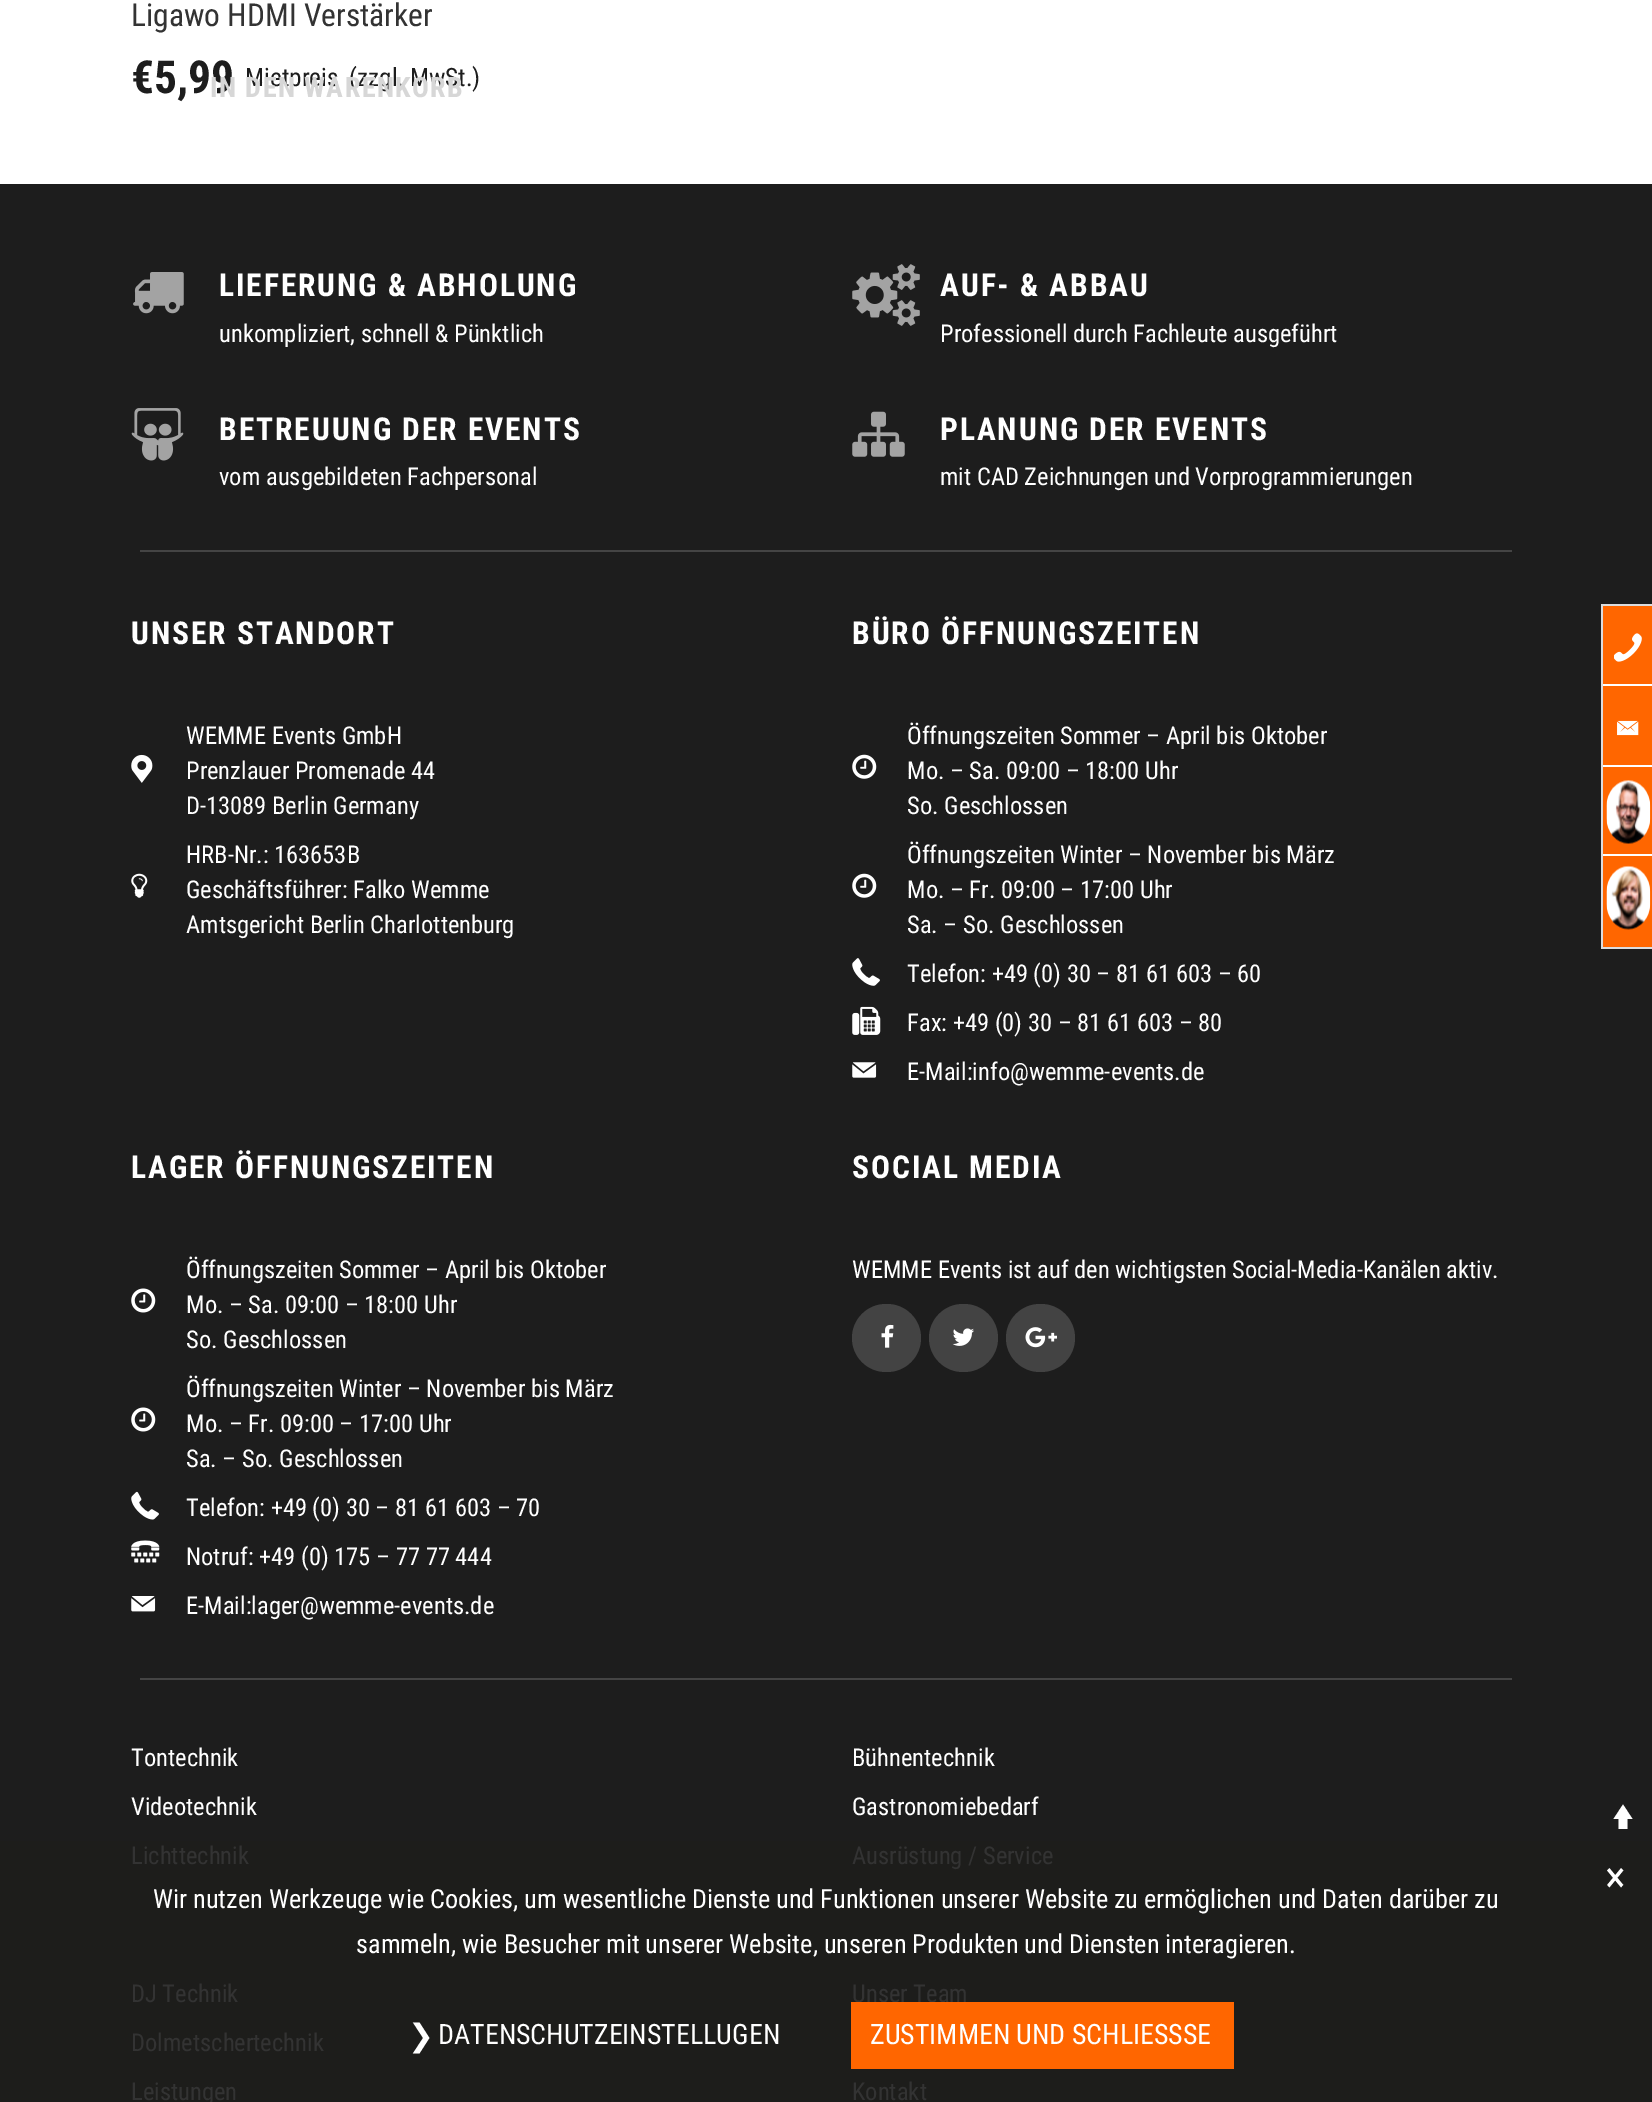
%!PS-Adobe-3.0
%%BoundingBox: 0 0 1652 2102
%%LanguageLevel: 3
%%Pages: 1
%%EndComments
%%BeginProlog
/rrect { 5 dict begin { /r /h /w /y /x } { exch def } forall
  x r add y moveto x w add y 2 copy h add r arct x w add y h add x 1 index r arct
  x y h add x y r arct x y 2 copy exch w add exch r arct closepath end } def
/drawimage { 5 dict begin { /h /w /y /x /name } { exch def } forall
  gsave x y translate w h scale
  w h 8 [w 0 0 h 0 0] name (r) file false 3 colorimage grestore end } def
%%EndProlog
%%BeginSetup
<< /PageSize [1652 2102] >> setpagedevice
%%EndSetup
%%Page: 1 1
0 2102 translate 1 -1 scale
4 setmiterlimit
1 setgray
0 0 1652 2102 rectfill
0.114 setgray
0 184 1652 1657 rectfill
0.114 0.114 0.106 setrgbcolor
0 1841 1652 261 rectfill
(images/1.raw) 133 272 51 42 drawimage
(images/2.raw) 852 264 68 62 drawimage
(images/3.raw) 131 408 53 53 drawimage
(images/4.raw) 852 411 53 46 drawimage
0.267 setgray
140 550 1372 2 rectfill
(images/5.raw) 131 754 22 29 drawimage
(images/6.raw) 131 873 17 25 drawimage
(images/7.raw) 852 754 25 25 drawimage
(images/7.raw) 852 873 25 25 drawimage
(images/8.raw) 852 958 28 28 drawimage
(images/9.raw) 852 1006 29 29 drawimage
(images/10.raw) 852 1062 25 16 drawimage
(images/11.raw) 131 1288 25 25 drawimage
(images/11.raw) 131 1407 25 25 drawimage
(images/12.raw) 131 1491 28 29 drawimage
(images/13.raw) 131 1540 29 23 drawimage
(images/14.raw) 131 1596 25 16 drawimage
0.263 setgray
852 1304 69 68 34 rrect fill
(images/15.raw) 881 1324 13 24 drawimage
929 1304 69 68 34 rrect fill
(images/16.raw) 952 1328 22 18 drawimage
1006 1304 69 68 34 rrect fill
(images/17.raw) 1025 1327 32 21 drawimage
0.267 setgray
140 1678 1372 2 rectfill
1 setgray
newpath 1613.5 1819 moveto 1623 1804.5 lineto 1632.5 1819 lineto 1627.5 1819 lineto 1627.5 1829 lineto 1618.5 1829 lineto 1618.5 1819 lineto closepath fill
1 0.4 0 setrgbcolor
1603 606 49 341 rectfill
0.859 0.863 0.871 setrgbcolor
1601 604 51 2 rectfill
1601 947 51 2 rectfill
1601 604 2 345 rectfill
1 setgray
1603 684 49 2 rectfill
(images/18.raw) 1614 633 28 29 drawimage
1603 765 49 2 rectfill
(images/19.raw) 1617 720 22 16 drawimage
1603 854 49 2 rectfill
(images/20.raw) 1606 780 45 64 drawimage
(images/21.raw) 1606 865 45 65 drawimage
/RobotoCondensed-Regular [31.5 0 0 -31.5 0 0] selectfont
0.2 setgray
131 26 moveto (Ligawo HDMI Verstärker) show
/RobotoCondensed-Bold [45.5 0 0 -45.5 0 0] selectfont
0.114 setgray
131 93 moveto (€5,99) show
/RobotoCondensed-Regular [25.25 0 0 -25.25 0 0] selectfont
245 86 moveto (Mietpreis) show
349 86 moveto (\(zzgl. MwSt.\)) show
/RobotoCondensed-Bold [28 0 0 -28 0 0] selectfont
0.843 setgray
210 97 moveto 1.4 0 (IN DEN WARENKORB) ashow
/RobotoCondensed-Bold [31.5 0 0 -31.5 0 0] selectfont
1 setgray
219 296 moveto 1.9 0 (LIEFERUNG & ABHOLUNG) ashow
/RobotoCondensed-Regular [24.5 0 0 -24.5 0 0] selectfont
219 342 moveto (unkompliziert, schnell & Pünktlich) show
/RobotoCondensed-Bold [31.5 0 0 -31.5 0 0] selectfont
940 296 moveto 1.9 0 (AUF- & ABBAU) ashow
/RobotoCondensed-Regular [24.5 0 0 -24.5 0 0] selectfont
940 342 moveto (Professionell durch Fachleute ausgeführt) show
/RobotoCondensed-Bold [31.5 0 0 -31.5 0 0] selectfont
219 440 moveto 1.9 0 (BETREUUNG DER EVENTS) ashow
/RobotoCondensed-Regular [24.5 0 0 -24.5 0 0] selectfont
219 485 moveto (vom ausgebildeten Fachpersonal) show
/RobotoCondensed-Bold [31.5 0 0 -31.5 0 0] selectfont
940 440 moveto 1.9 0 (PLANUNG DER EVENTS) ashow
/RobotoCondensed-Regular [24.5 0 0 -24.5 0 0] selectfont
940 485 moveto (mit CAD Zeichnungen und Vorprogrammierungen) show
/RobotoCondensed-Bold [31.5 0 0 -31.5 0 0] selectfont
131 644 moveto 1.9 0 (UNSER STANDORT) ashow
/RobotoCondensed-Regular [24.5 0 0 -24.5 0 0] selectfont
186 744 moveto (WEMME Events GmbH) show
186 779 moveto (Prenzlauer Promenade 44) show
186 814 moveto (D-13089 Berlin Germany) show
186 863 moveto (HRB-Nr.: 163653B) show
186 898 moveto (Geschäftsführer: Falko Wemme) show
186 933 moveto (Amtsgericht Berlin Charlottenburg) show
/RobotoCondensed-Bold [31.5 0 0 -31.5 0 0] selectfont
852 644 moveto 1.9 0 (BÜRO ÖFFNUNGSZEITEN) ashow
/RobotoCondensed-Regular [24.5 0 0 -24.5 0 0] selectfont
907 744 moveto (Öffnungszeiten Sommer – April bis Oktober) show
907 779 moveto (Mo. – Sa. 09:00 – 18:00 Uhr) show
907 814 moveto (So. Geschlossen) show
907 863 moveto (Öffnungszeiten Winter – November bis März) show
907 898 moveto (Mo. – Fr. 09:00 – 17:00 Uhr) show
907 933 moveto (Sa. – So. Geschlossen) show
907 982 moveto (Telefon: +49 \(0\) 30 – 81 61 603 – 60) show
907 1031 moveto (Fax: +49 \(0\) 30 – 81 61 603 – 80) show
907 1080 moveto (E-Mail:info@wemme-events.de) show
/RobotoCondensed-Bold [31.5 0 0 -31.5 0 0] selectfont
131 1178 moveto 1.9 0 (LAGER ÖFFNUNGSZEITEN) ashow
/RobotoCondensed-Regular [24.5 0 0 -24.5 0 0] selectfont
186 1278 moveto (Öffnungszeiten Sommer – April bis Oktober) show
186 1313 moveto (Mo. – Sa. 09:00 – 18:00 Uhr) show
186 1348 moveto (So. Geschlossen) show
186 1397 moveto (Öffnungszeiten Winter – November bis März) show
186 1432 moveto (Mo. – Fr. 09:00 – 17:00 Uhr) show
186 1467 moveto (Sa. – So. Geschlossen) show
186 1516 moveto (Telefon: +49 \(0\) 30 – 81 61 603 – 70) show
186 1565 moveto (Notruf: +49 \(0\) 175 – 77 77 444) show
186 1614 moveto (E-Mail:lager@wemme-events.de) show
/RobotoCondensed-Bold [31.5 0 0 -31.5 0 0] selectfont
852 1178 moveto 1.9 0 (SOCIAL MEDIA) ashow
/RobotoCondensed-Regular [24.5 0 0 -24.5 0 0] selectfont
852 1278 moveto (WEMME Events ist auf den wichtigsten Social-Media-Kanälen aktiv.) show
131 1766 moveto (Tontechnik) show
131 1815 moveto (Videotechnik) show
0.2 setgray
131 1864 moveto (Lichttechnik) show
1 setgray
852 1766 moveto (Bühnentechnik) show
852 1815 moveto (Gastronomiebedarf) show
0.2 setgray
852 1864 moveto (Ausrüstung / Service) show
131 2002 moveto (DJ Technik) show
131 2051 moveto (Dolmetschertechnik) show
131 2100 moveto (Leistungen) show
852 2002 moveto (Unser Team) show
852 2100 moveto (Kontakt) show
/RobotoCondensed-Regular [44 0 0 -44 0 0] selectfont
1 setgray
1605 1892 moveto (×) show
/DejaVuSans-Regular [31 0 0 -31 0 0] selectfont
408 2046 moveto (❯) show
/RobotoCondensed-Regular [28 0 0 -28 0 0] selectfont
438 2044 moveto (DATENSCHUTZEINSTELLUGEN) show
1 0.4 0 setrgbcolor
851 2002 383 67 rectfill
1 setgray
870 2044 moveto (ZUSTIMMEN UND SCHLIESSSE) show
/RobotoCondensed-Regular [26.25 0 0 -26.25 0 0] selectfont
153 1908 moveto (Wir nutzen Werkzeuge wie Cookies, um wesentliche Dienste und Funktionen unserer Website zu ermöglichen und Daten darüber zu) show
356 1953 moveto (sammeln, wie Besucher mit unserer Website, unseren Produkten und Diensten interagieren.) show
showpage
%%EOF
